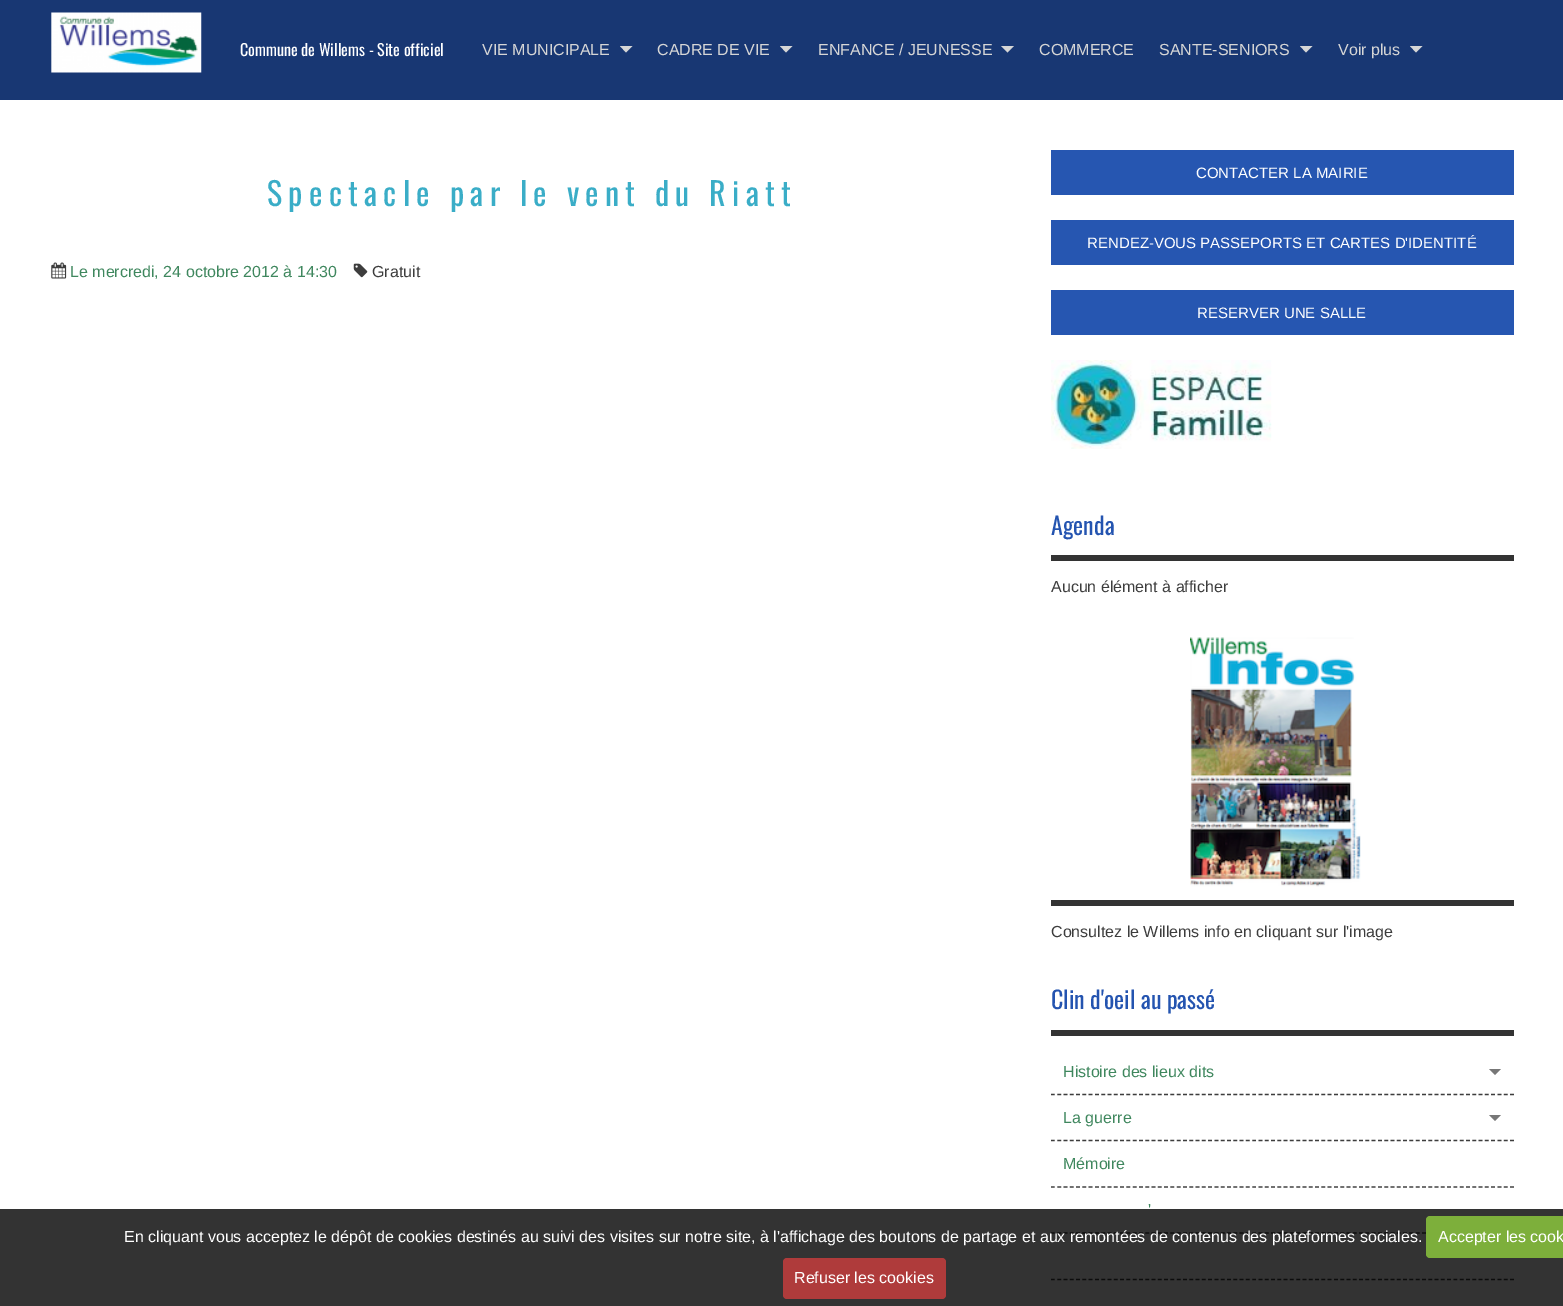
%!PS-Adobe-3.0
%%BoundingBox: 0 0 1563 1306
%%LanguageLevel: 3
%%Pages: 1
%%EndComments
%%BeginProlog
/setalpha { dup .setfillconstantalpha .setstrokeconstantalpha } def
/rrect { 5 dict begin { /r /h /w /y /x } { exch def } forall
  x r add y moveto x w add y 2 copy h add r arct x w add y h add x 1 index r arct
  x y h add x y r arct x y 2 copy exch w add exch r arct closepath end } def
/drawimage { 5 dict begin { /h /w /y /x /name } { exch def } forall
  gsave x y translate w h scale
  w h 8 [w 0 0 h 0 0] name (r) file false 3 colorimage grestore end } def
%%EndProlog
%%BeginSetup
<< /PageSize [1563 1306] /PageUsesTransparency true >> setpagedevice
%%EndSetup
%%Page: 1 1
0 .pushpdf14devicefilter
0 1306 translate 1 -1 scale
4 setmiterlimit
1 setgray
0 0 1563 1306 rectfill
0.094 0.216 0.451 setrgbcolor
0 0 1563 100 rectfill
(images/1.raw) 51 12 151 61 drawimage
0.839 setgray
newpath 620 46 moveto 632.5 46 lineto 626 52.5 lineto closepath fill
newpath 780 46 moveto 792.5 46 lineto 786 52.5 lineto closepath fill
newpath 1001 46 moveto 1014 46 lineto 1007.5 52.5 lineto closepath fill
newpath 1300 46 moveto 1312.5 46 lineto 1306 52.5 lineto closepath fill
newpath 1410 46 moveto 1422.5 46 lineto 1416 52.5 lineto closepath fill
(images/2.raw) 51 262 16 17 drawimage
(images/3.raw) 353 263 15 15 drawimage
0.149 0.337 0.694 setrgbcolor
1051 150 463 45 rectfill
1051 220 463 45 rectfill
1051 290 463 45 rectfill
(images/4.raw) 1051 360 221 89 drawimage
0.2 setgray
1051 555 463 6 rectfill
1051 900 463 6 rectfill
(images/5.raw) 1190 637 171 250 drawimage
1051 1030 463 6 rectfill
0.239 setgray
1.2 setlinewidth
[3.75 2.54] 0 setdash
newpath 1051 1094.5 moveto 1514 1094.5 lineto stroke
0.467 setgray
newpath 1489 1069 moveto 1501 1069 lineto 1495 1075 lineto closepath fill
0.239 setgray
newpath 1051 1140.5 moveto 1514 1140.5 lineto stroke
0.467 setgray
newpath 1489 1115 moveto 1501 1115 lineto 1495 1121 lineto closepath fill
0.239 setgray
newpath 1051 1187 moveto 1514 1187 lineto stroke
newpath 1051 1233 moveto 1514 1233 lineto stroke
newpath 1051 1279.5 moveto 1514 1279.5 lineto stroke
0.8 setalpha
0 setgray
0 1209 1563 97 rectfill
1 setalpha
0.49 0.686 0.231 setrgbcolor
1426 1216 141 42 4 rrect fill
0.686 0.231 0.231 setrgbcolor
783 1258 163 41 4 rrect fill
/Oswald-Regular [16 0 0 -16 0 0] selectfont
1 setgray
240 56 moveto (Commune de Willems - Site officiel) show
/LiberationSans-Regular [16 0 0 -16 0 0] selectfont
0.839 setgray
482 55 moveto (VIE MUNICIPALE) show
657 55 moveto (CADRE DE VIE) show
818 55 moveto (ENFANCE / JEUNESSE) show
1039 55 moveto (COMMERCE) show
1159 55 moveto (SANTE-SENIORS) show
1338 55 moveto (Voir plus) show
/Oswald-Regular [32 0 0 -32 0 0] selectfont
0.227 0.678 0.78 setrgbcolor
267 206 moveto 6.25 0 (Spectacle par le vent du Riatt) ashow
/LiberationSans-Regular [16 0 0 -16 0 0] selectfont
0.247 0.529 0.369 setrgbcolor
70 277 moveto (Le mercredi, 24 octobre 2012 à 14:30) show
0.239 setgray
372 277 moveto (Gratuit) show
/LiberationSans-Regular [15 0 0 -15 0 0] selectfont
1 setgray
1196 178 moveto (CONTACTER LA MAIRIE) show
1087 248 moveto (RENDEZ-VOUS PASSEPORTS ET CARTES D'IDENTITÉ) show
1197 318 moveto (RESERVER UNE SALLE) show
/Oswald-Regular [24 0 0 -24 0 0] selectfont
0.141 0.329 0.69 setrgbcolor
1051 535 moveto (Agenda) show
/LiberationSans-Regular [16 0 0 -16 0 0] selectfont
0.239 setgray
1051 592 moveto (Aucun élément à afficher) show
1051 937 moveto (Consultez le Willems info en cliquant sur l'image) show
/Oswald-Regular [24 0 0 -24 0 0] selectfont
0.141 0.329 0.69 setrgbcolor
1051 1009 moveto (Clin d'oeil au passé) show
/LiberationSans-Regular [16 0 0 -16 0 0] selectfont
0.247 0.529 0.369 setrgbcolor
1063 1077 moveto (Histoire des lieux dits) show
1063 1123 moveto (La guerre) show
1063 1169 moveto (Mémoire) show
1148 1215 moveto (') show
1 setgray
124 1242 moveto (En cliquant vous acceptez le dépôt de cookies destinés au suivi des visites sur notre site, à l'affichage des boutons de partage et aux remontées de contenus des plateformes sociales.) show
1438 1242 moveto (Accepter les cook) show
794 1283 moveto (Refuser les cookies) show
.poppdf14devicefilter showpage
%%EOF
